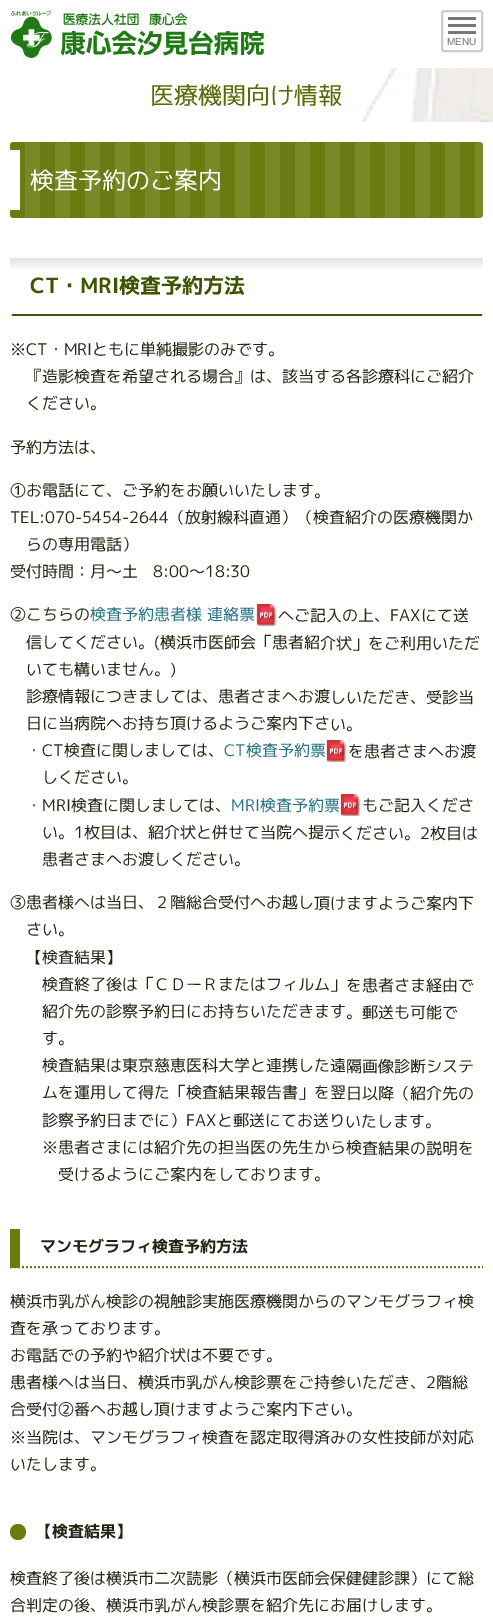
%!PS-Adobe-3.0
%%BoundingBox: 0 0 493 1617
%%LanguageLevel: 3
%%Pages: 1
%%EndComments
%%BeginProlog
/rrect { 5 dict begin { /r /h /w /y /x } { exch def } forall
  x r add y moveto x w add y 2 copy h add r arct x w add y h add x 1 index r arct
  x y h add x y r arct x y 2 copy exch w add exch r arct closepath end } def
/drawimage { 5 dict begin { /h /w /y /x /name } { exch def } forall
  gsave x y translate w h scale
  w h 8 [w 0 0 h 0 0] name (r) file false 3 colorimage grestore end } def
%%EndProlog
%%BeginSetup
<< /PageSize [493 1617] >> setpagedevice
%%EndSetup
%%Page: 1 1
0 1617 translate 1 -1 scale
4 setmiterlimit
1 setgray
0 0 493 1617 rectfill
(images/1.raw) 10 10 254 48 drawimage
0.8 setgray
2 setlinewidth
442 11 40 40 2 rrect stroke
0.467 setgray
448 17 28 17 rectfill
1 setgray
448 20 28 4 rectfill
448 27 28 4 rectfill
(images/2.raw) 347 68 146 54 drawimage
(images/3.raw) 10 142 473 76 drawimage
10 150 10 60 rectfill
gsave
10 258 473 58 3 rrect clip newpath
gsave newpath 13 258 moveto 480 258 lineto 481.5 258 483 259.5 483 261 curveto 483 314 lineto 10 314 lineto 10 261 lineto 10 259.5 11.5 258 13 258 curveto closepath clip newpath
<< /ShadingType 2 /ColorSpace /DeviceRGB /Coords [247 258 247 314] /Extend [true true] /Function << /FunctionType 3 /Domain [0 1] /Functions [<< /FunctionType 2 /Domain [0 1] /C0 [0.882 0.882 0.882] /C1 [1 1 1] /N 1 >> << /FunctionType 2 /Domain [0 1] /C0 [1 1 1] /C1 [1 1 1] /N 1 >>] /Bounds [0.22] /Encode [0 1 0 1] >> >> shfill grestore
gsave newpath 10 314 moveto 483 314 lineto 483 316 lineto 10 316 lineto closepath clip newpath
<< /ShadingType 2 /ColorSpace /DeviceRGB /Coords [247 314 247 370] /Extend [true true] /Function << /FunctionType 3 /Domain [0 1] /Functions [<< /FunctionType 2 /Domain [0 1] /C0 [0.882 0.882 0.882] /C1 [1 1 1] /N 1 >> << /FunctionType 2 /Domain [0 1] /C0 [1 1 1] /C1 [1 1 1] /N 1 >>] /Bounds [0.22] /Encode [0 1 0 1] >> >> shfill grestore
grestore
0.239 0.329 0 setrgbcolor
12 314 470 2 rectfill
(images/4.raw) 256 603 21 23 drawimage
(images/5.raw) 326 740 21 22 drawimage
(images/6.raw) 340 794 21 22 drawimage
0.42 0.482 0.067 setrgbcolor
[2 2] 0 setdash
newpath 10 1267 moveto 483 1267 lineto stroke
10 1229 10 39 rectfill
newpath 18 1532 8 0 360 arc closepath fill
/LiberationSans-Regular [10 0 0 -10 0 0] selectfont
0.467 setgray
447 45 moveto (MENU) show
/MPLUS1p-Regular [24 0 0 -24 0 0] selectfont
0.357 0.412 0.027 setrgbcolor
150 104 moveto (医療機関向け情報) show
1 setgray
30 189 moveto (検査予約のご案内) show
/MPLUS1p-Bold [21 0 0 -21 0 0] selectfont
0.239 0.329 0 setrgbcolor
30 293 moveto (CT・MRI検査予約方法) show
/MPLUS1p-Regular [16 0 0 -16 0 0] selectfont
0.141 0.141 0.075 setrgbcolor
10 355 moveto (※CT・MRIともに単純撮影のみです。) show
26 382 moveto (『造影検査を希望される場合』は、該当する各診療科にご紹介) show
26 409 moveto (ください。) show
10 453 moveto (予約方法は、) show
gsave 10 496 translate 0.1 rotate 0 0 moveto (①お電話にて、ご予約をお願いいたします。) show grestore
gsave 10 523 translate 0.1 rotate 0 0 moveto (TEL:) show grestore
gsave 45 523 translate 0.1 rotate 0 0 moveto (070-5454-2644) show grestore
gsave 169 523 translate 0.1 rotate 0 0 moveto (（放射線科直通）（検査紹介の医療機関か) show grestore
gsave 26 550 translate 0.1 rotate 0 0 moveto (らの専用電話）) show grestore
gsave 10 577 translate 0.1 rotate 0 0 moveto (受付時間：月～土 8:00～18:30) show grestore
gsave 10 620 translate 0.1 rotate 0 0 moveto (②こちらの) show grestore
0.149 0.447 0.529 setrgbcolor
gsave 90 620 translate 0.1 rotate 0 0 moveto (検査予約患者様 連絡票) show grestore
0.141 0.141 0.075 setrgbcolor
gsave 278 621 translate 0.1 rotate 0 0 moveto (へご記入の上、FAXにて送) show grestore
gsave 26 648 translate 0.1 rotate 0 0 moveto (信してください。\(横浜市医師会「患者紹介状」をご利用いただ) show grestore
gsave 26 675 translate 0.1 rotate 0 0 moveto (いても構いません。\)) show grestore
gsave 26 702 translate 0.1 rotate 0 0 moveto (診療情報につきましては、患者さまへお渡しいただき、受診当) show grestore
gsave 26 729 translate 0.1 rotate 0 0 moveto (日に当病院へお持ち頂けるようご案内下さい。) show grestore
gsave 26 756 translate 0.1 rotate 0 0 moveto (・CT検査に関しましては、) show grestore
0.149 0.447 0.529 setrgbcolor
gsave 224 756 translate 0.1 rotate 0 0 moveto (CT検査予約票) show grestore
0.141 0.141 0.075 setrgbcolor
gsave 348 757 translate 0.1 rotate 0 0 moveto (を患者さまへお渡) show grestore
gsave 42 783 translate 0.1 rotate 0 0 moveto (しください。) show grestore
gsave 26 811 translate 0.1 rotate 0 0 moveto (・MRI検査に関しましては、) show grestore
0.149 0.447 0.529 setrgbcolor
gsave 231 811 translate 0.1 rotate 0 0 moveto (MRI検査予約票) show grestore
0.141 0.141 0.075 setrgbcolor
gsave 362 811 translate 0.1 rotate 0 0 moveto (もご記入くださ) show grestore
gsave 42 838 translate 0.1 rotate 0 0 moveto (い。1枚目は、紹介状と併せて当院へ提示ください。2枚目は) show grestore
gsave 42 865 translate 0.1 rotate 0 0 moveto (患者さまへお渡しください。) show grestore
gsave 10 908 translate 0.1 rotate 0 0 moveto (③患者様へは当日、２階総合受付へお越し頂けますようご案内下) show grestore
gsave 26 935 translate 0.1 rotate 0 0 moveto (さい。) show grestore
gsave 26 963 translate 0.1 rotate 0 0 moveto (【検査結果】) show grestore
gsave 42 990 translate 0.1 rotate 0 0 moveto (検査終了後は「ＣＤーＲまたはフィルム」を患者さま経由で) show grestore
gsave 42 1017 translate 0.1 rotate 0 0 moveto (紹介先の診察予約日にお持ちいただきます。郵送も可能で) show grestore
gsave 42 1044 translate 0.1 rotate 0 0 moveto (す。) show grestore
gsave 42 1071 translate 0.1 rotate 0 0 moveto (検査結果は東京慈恵医科大学と連携した遠隔画像診断システ) show grestore
gsave 42 1098 translate 0.1 rotate 0 0 moveto (ムを運用して得た「検査結果報告書」を翌日以降（紹介先の) show grestore
gsave 42 1126 translate 0.1 rotate 0 0 moveto (診察予約日までに）FAXと郵送にてお送りいたします。) show grestore
gsave 42 1153 translate 0.1 rotate 0 0 moveto (※) show grestore
gsave 58 1153 translate 0.1 rotate 0 0 moveto (患者さまには紹介先の担当医の先生から検査結果の説明を) show grestore
gsave 58 1180 translate 0.1 rotate 0 0 moveto (受けるようにご案内をしております。) show grestore
/MPLUS1p-Bold [16 0 0 -16 0 0] selectfont
40 1252 moveto (マンモグラフィ検査予約方法) show
/MPLUS1p-Regular [16 0 0 -16 0 0] selectfont
10 1307 moveto (横浜市乳がん検診の視触診実施医療機関からのマンモグラフィ検) show
10 1334 moveto (査を承っております。) show
10 1361 moveto (お電話での予約や紹介状は不要です。) show
10 1388 moveto (患者様へは当日、横浜市乳がん検診票をご持参いただき、2階総) show
10 1415 moveto (合受付②番へお越し頂けますようご案内下さい。) show
10 1443 moveto (※当院は、マンモグラフィ検査を認定取得済みの女性技師が対応) show
10 1470 moveto (いたします。) show
/MPLUS1p-Bold [16 0 0 -16 0 0] selectfont
36 1537 moveto (【検査結果】) show
/MPLUS1p-Regular [16 0 0 -16 0 0] selectfont
10 1584 moveto (検査終了後は横浜市二次読影（横浜市医師会保健健診課）にて総) show
10 1611 moveto (合判定の後、横浜市乳がん検診票を紹介先にお届けします。) show
showpage
%%EOF
